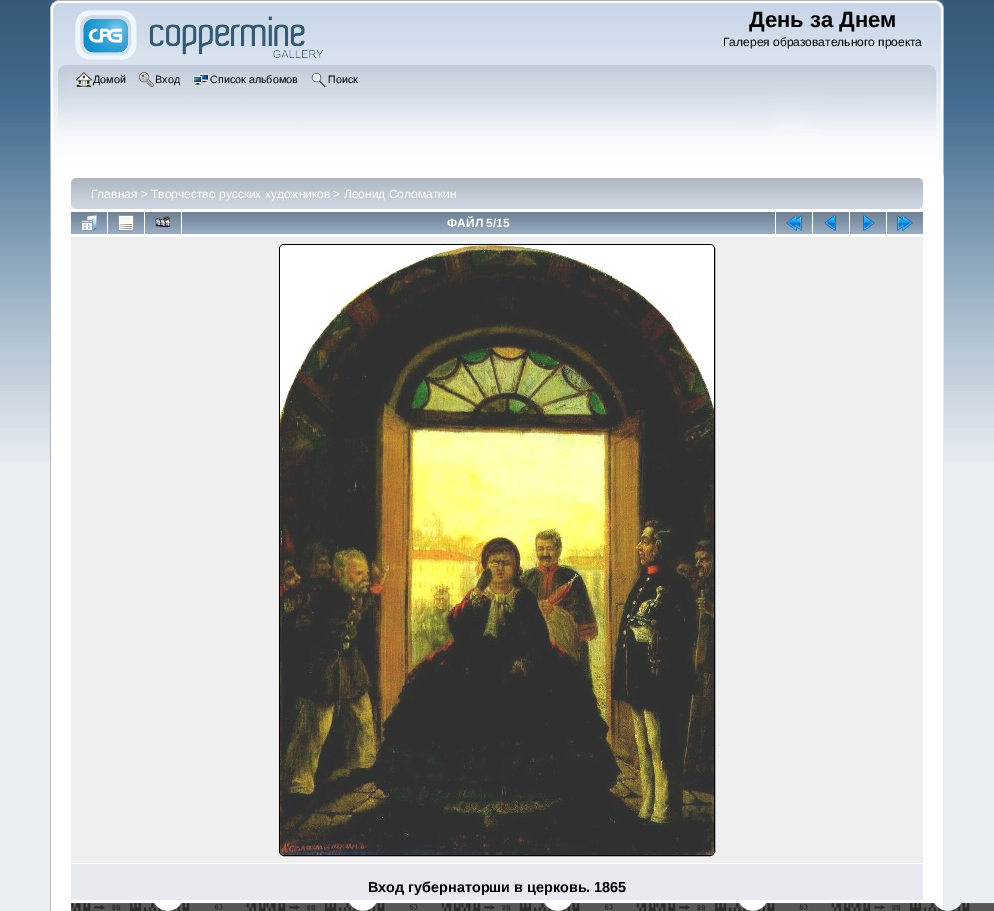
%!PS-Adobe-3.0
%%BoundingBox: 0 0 994 911
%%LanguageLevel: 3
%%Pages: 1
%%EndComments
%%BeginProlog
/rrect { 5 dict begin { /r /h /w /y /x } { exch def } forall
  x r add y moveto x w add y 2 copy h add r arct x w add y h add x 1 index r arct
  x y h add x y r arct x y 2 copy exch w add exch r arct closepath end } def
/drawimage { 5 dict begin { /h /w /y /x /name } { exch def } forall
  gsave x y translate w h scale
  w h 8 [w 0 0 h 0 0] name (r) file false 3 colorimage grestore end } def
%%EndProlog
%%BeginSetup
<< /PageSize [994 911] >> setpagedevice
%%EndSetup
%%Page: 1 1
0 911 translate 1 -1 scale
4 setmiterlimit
0.914 0.933 0.949 setrgbcolor
0 0 994 911 rectfill
(images/1.raw) 0 0 994 462 drawimage
(images/2.raw) 50 0 886 65 drawimage
(images/3.raw) 936 0 8 65 drawimage
(images/4.raw) 75 10 248 50 drawimage
(images/5.raw) 50 65 880 110 drawimage
(images/6.raw) 930 65 14 110 drawimage
(images/7.raw) 76 72 16 16 drawimage
(images/8.raw) 139 72 15 15 drawimage
(images/9.raw) 193 74 16 12 drawimage
(images/10.raw) 311 72 16 15 drawimage
1 setgray
51 175 892 736 rectfill
0.718 setgray
50 175 1 736 rectfill
0.894 setgray
943 175 1 736 rectfill
(images/11.raw) 71 178 848 31 drawimage
(images/12.raw) 919 178 4 31 drawimage
(images/13.raw) 71 212 36 22 drawimage
(images/14.raw) 81 215 16 16 drawimage
(images/13.raw) 108 212 36 22 drawimage
(images/15.raw) 118 215 16 16 drawimage
(images/13.raw) 145 212 36 22 drawimage
(images/16.raw) 155 216 16 12 drawimage
(images/17.raw) 182 212 593 22 drawimage
(images/13.raw) 776 212 36 22 drawimage
(images/18.raw) 786 215 16 16 drawimage
(images/13.raw) 813 212 36 22 drawimage
(images/19.raw) 824 215 12 16 drawimage
(images/13.raw) 850 212 36 22 drawimage
(images/20.raw) 863 215 12 16 drawimage
(images/13.raw) 887 212 36 22 drawimage
(images/21.raw) 897 215 16 16 drawimage
0.937 setgray
71 237 852 626 rectfill
0 setgray
279.5 244.5 435 611 4.5 rrect stroke
(images/22.raw) 280 245 434 610 drawimage
0.906 0.918 0.937 setrgbcolor
71 864 852 36 rectfill
(images/23.raw) 71 903 923 8 drawimage
/LiberationSans-Bold [22 0 0 -22 0 0] selectfont
0 setgray
749 27 moveto (День за Днем) show
/LiberationSans-Regular [12 0 0 -12 0 0] selectfont
723 46 moveto (Галерея образовательного проекта) show
/LiberationSans-Regular [10.75 0 0 -10.75 0 0] selectfont
93 83 moveto (Домой) show
155 83 moveto (Вход) show
210 83 moveto (Список альбомов) show
328 83 moveto (Поиск) show
/LiberationSans-Regular [12 0 0 -12 0 0] selectfont
1 setgray
91 198 moveto (Главная > Творчество русских художников > Леонид Соломаткин) show
/LiberationSans-Bold [12 0 0 -12 0 0] selectfont
447 227 moveto (ФАЙЛ 5/15) show
/LiberationSans-Bold [14.4 0 0 -14.4 0 0] selectfont
0 setgray
368 892 moveto (Вход губернаторши в церковь. 1865) show
showpage
%%EOF
